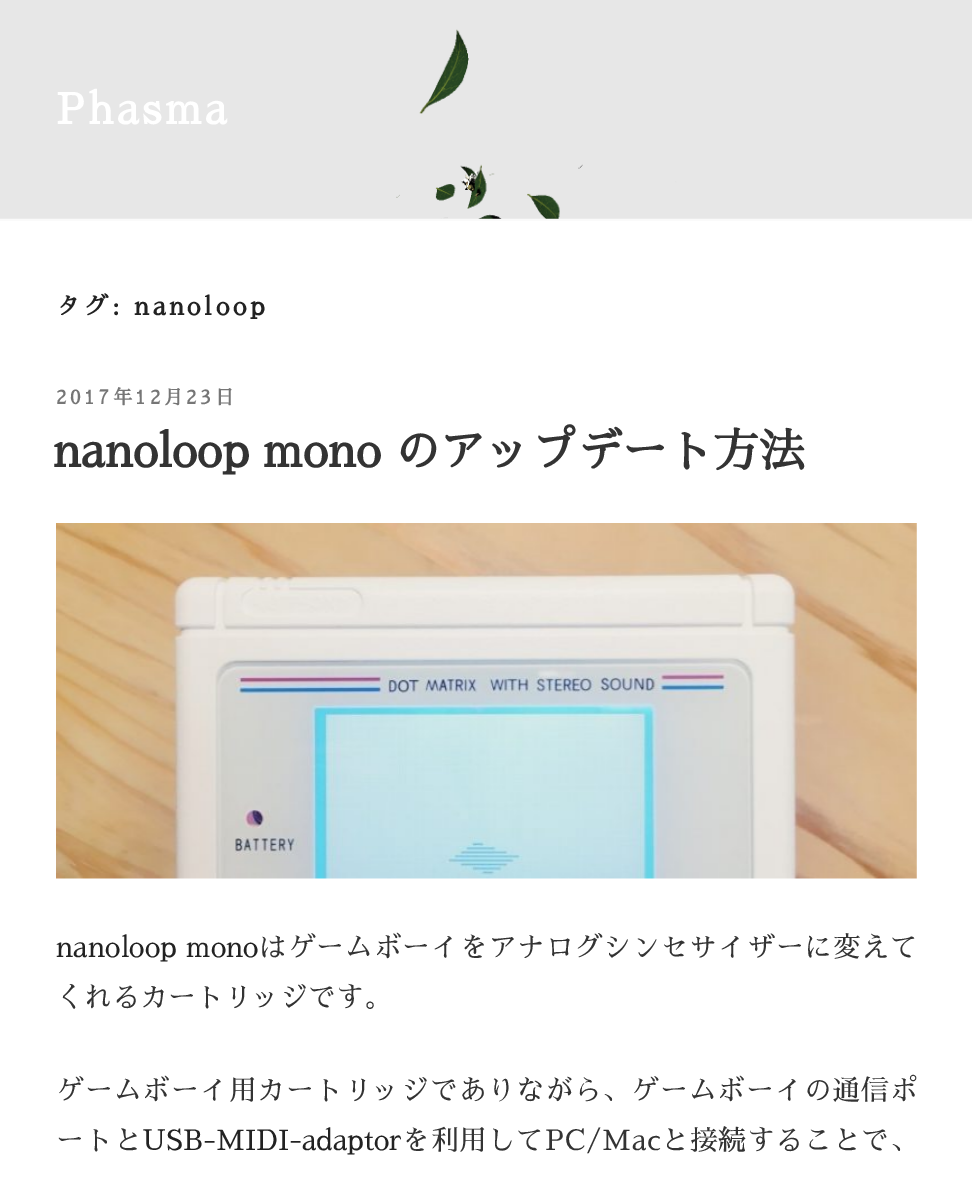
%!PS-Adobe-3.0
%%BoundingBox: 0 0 972 1186
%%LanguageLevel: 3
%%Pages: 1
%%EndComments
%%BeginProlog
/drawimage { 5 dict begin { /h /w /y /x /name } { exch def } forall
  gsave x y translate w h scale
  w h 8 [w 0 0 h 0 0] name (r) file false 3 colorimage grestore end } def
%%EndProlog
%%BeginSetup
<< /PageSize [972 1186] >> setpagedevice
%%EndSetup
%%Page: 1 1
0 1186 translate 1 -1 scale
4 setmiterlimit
1 setgray
0 0 972 1186 rectfill
0.98 setgray
0 218 972 3 rectfill
(images/1.raw) 0 0 972 219 drawimage
(images/2.raw) 56 523 861 356 drawimage
/SawarabiMincho-Bold [42 0 0 -42 0 0] selectfont
1 setgray
56 124 moveto 3.5 0 (Phasma) ashow
/SawarabiMincho-Bold [24.5 0 0 -24.5 0 0] selectfont
0.133 setgray
56 315 moveto 3.5 0 (タグ: nanoloop) ashow
/SawarabiMincho-Bold [19.25 0 0 -19.25 0 0] selectfont
0.463 setgray
56 404 moveto 3.5 0 (2017年12月23日) ashow
/SawarabiMincho-Bold [45.5 0 0 -45.5 0 0] selectfont
0.2 setgray
53 467 moveto (nanoloop mono のアップデート方法) show
/SawarabiMincho-Regular [28 0 0 -28 0 0] selectfont
0.133 setgray
56 957 moveto 1 0 32 (nanoloop mono) widthshow
0.2 setgray
259 957 moveto 0.7 0 (はゲームボーイをアナログシンセサイザーに変えて) ashow
56 1007 moveto (くれるカートリッジです。) show
56 1100 moveto 0.75 0 (ゲームボーイ用カートリッジでありながら、ゲームボーイの通信ポ) ashow
56 1150 moveto 1 0 (ートと) ashow
0.133 setgray
142 1150 moveto (USB-MIDI-adaptor) show
0.2 setgray
402 1150 moveto 0.6 0 (を利用してPC/Macと接続することで、) ashow
showpage
%%EOF
